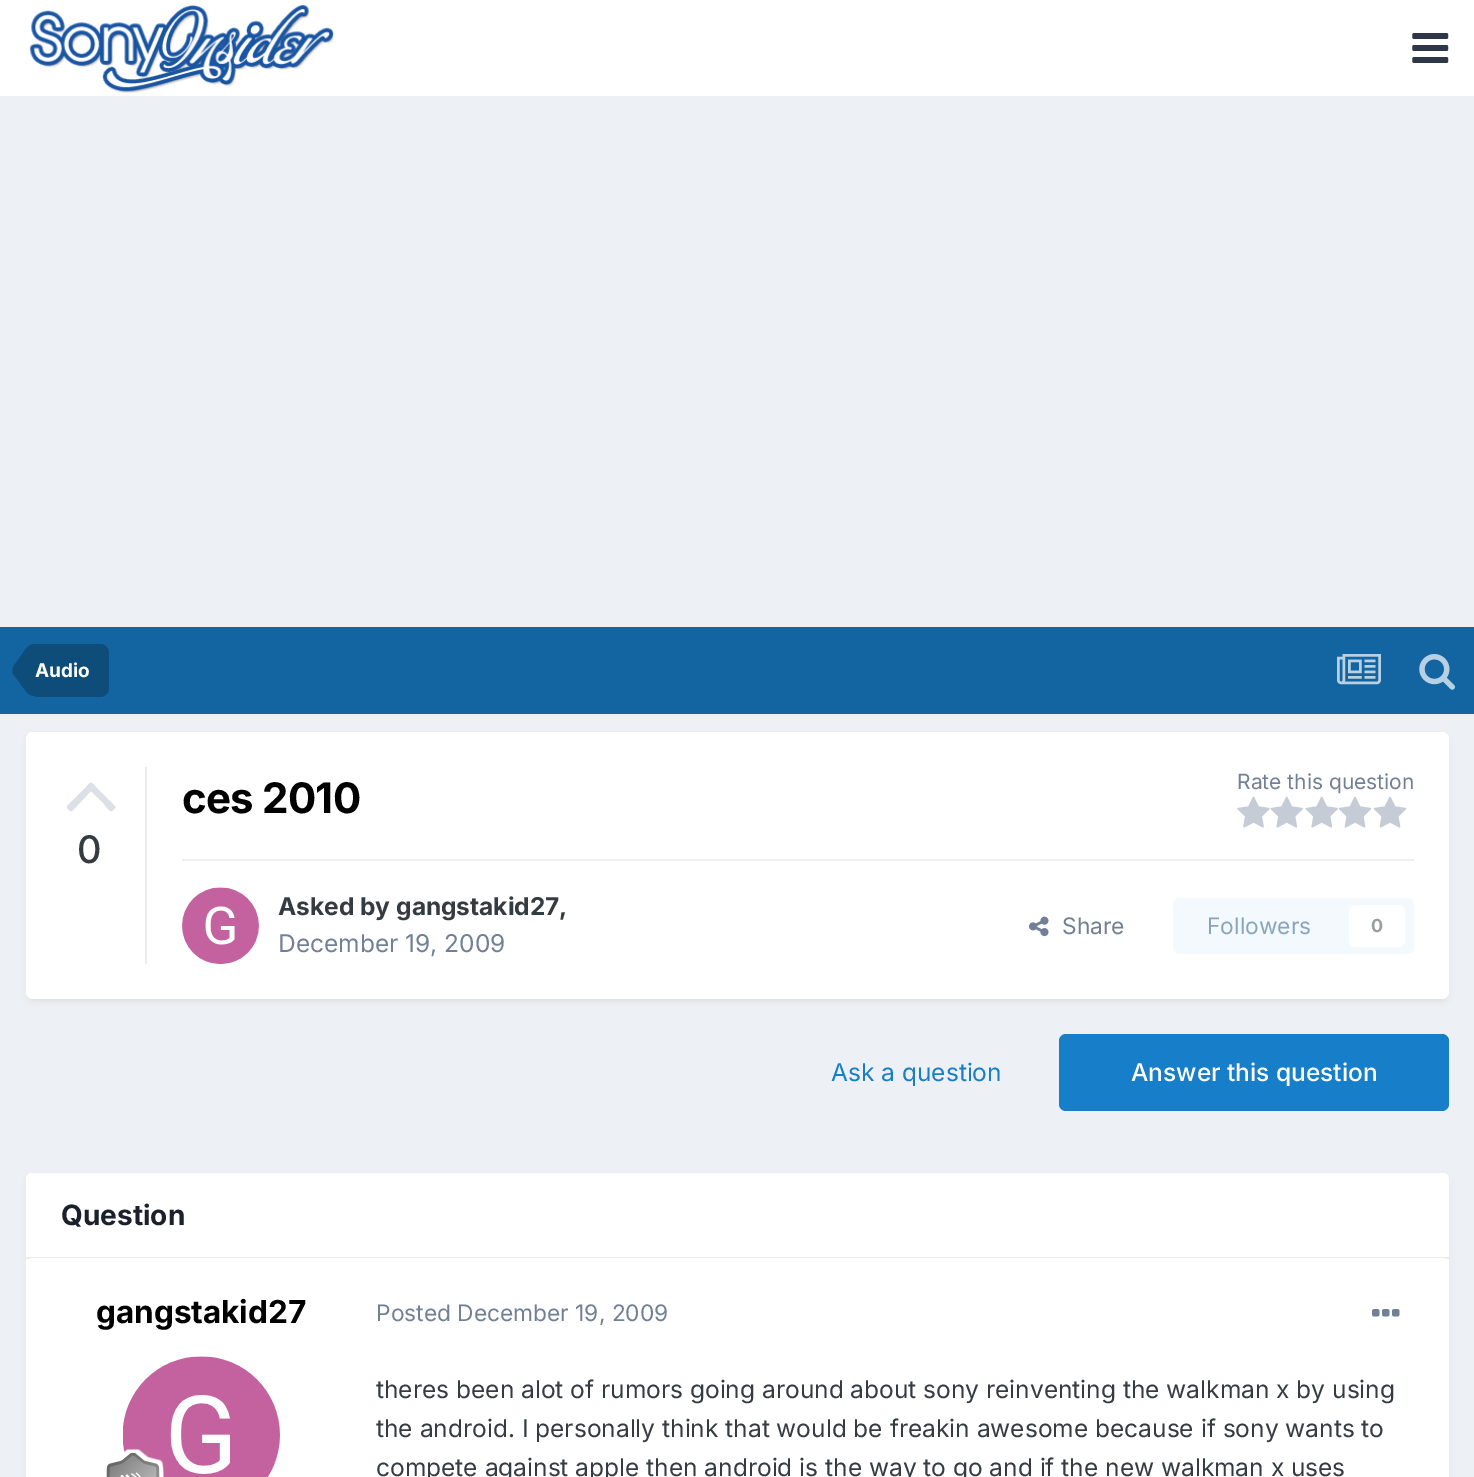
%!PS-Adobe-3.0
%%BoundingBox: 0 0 1474 1477
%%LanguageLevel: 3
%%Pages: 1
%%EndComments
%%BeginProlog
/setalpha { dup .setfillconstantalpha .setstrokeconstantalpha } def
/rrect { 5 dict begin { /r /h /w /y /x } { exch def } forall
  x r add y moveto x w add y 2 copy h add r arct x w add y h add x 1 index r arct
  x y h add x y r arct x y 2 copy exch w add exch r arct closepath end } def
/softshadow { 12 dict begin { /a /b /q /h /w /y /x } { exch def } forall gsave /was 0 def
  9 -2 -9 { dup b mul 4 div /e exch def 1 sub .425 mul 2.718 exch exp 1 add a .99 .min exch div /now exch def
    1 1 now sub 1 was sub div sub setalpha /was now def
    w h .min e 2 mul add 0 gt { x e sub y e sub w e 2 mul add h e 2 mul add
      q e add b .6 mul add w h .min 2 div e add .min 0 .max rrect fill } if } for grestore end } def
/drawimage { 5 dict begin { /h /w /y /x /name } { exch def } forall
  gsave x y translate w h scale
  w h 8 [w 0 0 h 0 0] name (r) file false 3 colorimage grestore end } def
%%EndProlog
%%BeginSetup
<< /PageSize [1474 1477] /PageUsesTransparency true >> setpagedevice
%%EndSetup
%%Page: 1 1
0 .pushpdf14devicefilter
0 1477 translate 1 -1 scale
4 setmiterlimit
0.929 0.941 0.957 setrgbcolor
0 0 1474 1477 rectfill
1 setgray
0 0 1474 96 rectfill
(images/1.raw) 29 5 305 88 drawimage
(images/2.raw) 1412 33 37 30 drawimage
0.071 0.396 0.631 setrgbcolor
0 627 1474 87 rectfill
0.055 0.298 0.475 setrgbcolor
newpath 35 644 moveto 100 644 lineto 105 644 109 648 109 653 curveto 109 688 lineto 109 693 105 697 100 697 curveto 35 697 lineto closepath fill
newpath 12.5 673 moveto 12.5 670 lineto 35 670 lineto 35 696 lineto 31 696 27.5 694 25 690 curveto closepath 35 644 moveto 35 670 lineto 12.5 670 lineto 12.5 669 12.5 668 13 667 curveto 25 650 lineto 27.5 646 31 644 35 644 curveto closepath fill
(images/3.raw) 1337 654 44 31 drawimage
(images/4.raw) 1419 654 36 36 drawimage
0.176 0.216 0.282 setrgbcolor
28 737 1419 264 5 3.5 0.1 softshadow
1 setgray
26 732 1423 267 7 rrect fill
0.918 0.925 0.937 setrgbcolor
145 767 2 197 rectfill
0.863 0.875 0.898 setrgbcolor
newpath 115 806 moveto 116 807 115 809 114 809 curveto 110 814 108 809 104 804 curveto 91 791 lineto 72 811 lineto 70 812 69 810 68 809 curveto 65 806 68 806 71 802 curveto 86 787 lineto 92 781 90 781 96 787 curveto closepath fill
(images/5.raw) 1237 796 33 32 drawimage
(images/6.raw) 1270 796 33 32 drawimage
(images/6.raw) 1305 796 33 32 drawimage
(images/7.raw) 1338 796 34 32 drawimage
(images/7.raw) 1373 796 34 32 drawimage
0.937 0.937 0.941 setrgbcolor
182 859 1232 2 rectfill
(images/8.raw) 182 887 77 77 drawimage
(images/9.raw) 1029 916 20 21 drawimage
0.957 0.976 0.992 setrgbcolor
1173 898 241 56 7 rrect fill
1 setgray
1349 905 56 42 7 rrect fill
0.09 0.494 0.788 setrgbcolor
1059 1034 390 77 7 rrect fill
0.176 0.216 0.282 setrgbcolor
28 1178 1419 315 5 3.5 0.1 softshadow
1 setgray
26 1173 1423 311 7 rrect fill
newpath 33 1173 moveto 1442 1173 lineto 1446 1173 1449 1176 1449 1180 curveto 1449 1258 lineto 26 1258 lineto 26 1180 lineto 26 1176 29 1173 33 1173 curveto closepath fill
0.918 0.925 0.937 setrgbcolor
26 1257 1423 2 rectfill
1 setgray
26 1258 1423 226 7 rrect fill
(images/10.raw) 123 1356 157 121 drawimage
(images/11.raw) 106 1449 58 28 drawimage
(images/12.raw) 1372 1309 28 8 drawimage
/Inter-Bold [19 0 0 -19 0 0] selectfont
35 677 moveto (Audio) show
/Inter-Medium [38 0 0 -38 0 0] selectfont
0.208 0.235 0.255 setrgbcolor
77 863 moveto (0) show
/Inter-Bold [42 0 0 -42 0 0] selectfont
0 setgray
182 813 moveto -0.75 0 (ces 2010) ashow
/Inter-Regular [21 0 0 -21 0 0] selectfont
0.443 0.502 0.588 setrgbcolor
1237 789 moveto (Rate this question) show
/Inter-Bold [24.5 0 0 -24.5 0 0] selectfont
0.208 0.235 0.255 setrgbcolor
278 915 moveto (Asked by gangstakid27,) show
/Inter-Regular [24.5 0 0 -24.5 0 0] selectfont
0.443 0.502 0.588 setrgbcolor
278 952 moveto (December 19, 2009) show
/Inter-Regular [22.75 0 0 -22.75 0 0] selectfont
1062 934 moveto (Share) show
0.529 0.651 0.737 setrgbcolor
1207 934 moveto (Followers) show
/Inter-Bold [18 0 0 -18 0 0] selectfont
0.604 0.62 0.627 setrgbcolor
1371 932 moveto (0) show
/Inter-Regular [24.5 0 0 -24.5 0 0] selectfont
0.09 0.494 0.788 setrgbcolor
831 1081 moveto (Ask a question) show
/Inter-Medium [24.5 0 0 -24.5 0 0] selectfont
1 setgray
1131 1081 moveto (Answer this question) show
/Inter-Bold [28 0 0 -28 0 0] selectfont
0.102 0.125 0.173 setrgbcolor
61 1225 moveto (Question) show
/Inter-Bold [31.5 0 0 -31.5 0 0] selectfont
0 setgray
96 1323 moveto (gangstakid27) show
/Inter-Regular [22.75 0 0 -22.75 0 0] selectfont
0.443 0.502 0.588 setrgbcolor
376 1321 moveto (Posted December 19, 2009) show
/Inter-Regular [24.5 0 0 -24.5 0 0] selectfont
0.208 0.235 0.255 setrgbcolor
376 1398 moveto (theres been alot of rumors going around about sony reinventing the walkman x by using) show
376 1437 moveto (the android. I personally think that would be freakin awesome because if sony wants to) show
376 1476 moveto (compete against apple then android is the way to go and if the new walkman x uses) show
.poppdf14devicefilter showpage
%%EOF
